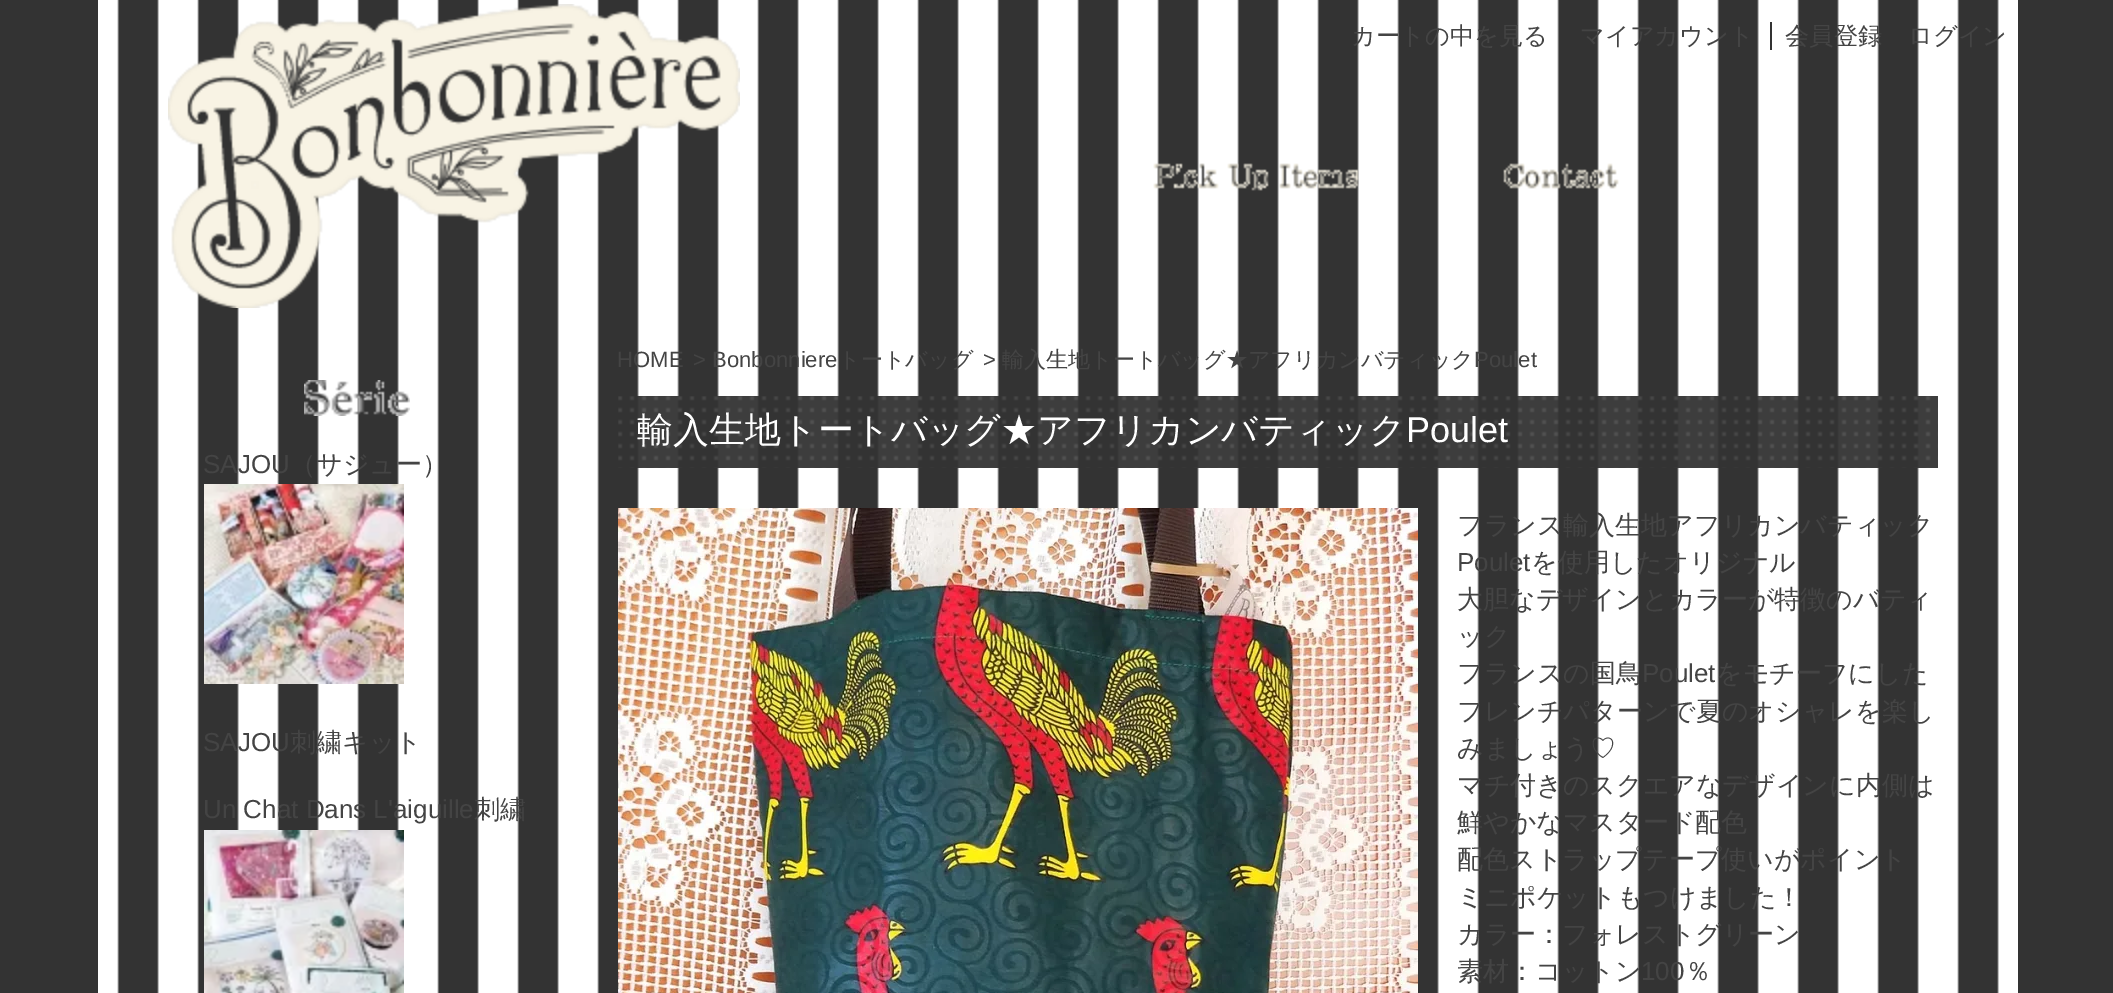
%!PS-Adobe-3.0
%%BoundingBox: 0 0 2113 993
%%LanguageLevel: 3
%%Pages: 1
%%EndComments
%%BeginProlog
/drawimage { 5 dict begin { /h /w /y /x /name } { exch def } forall
  gsave x y translate w h scale
  w h 8 [w 0 0 h 0 0] name (r) file false 3 colorimage grestore end } def
%%EndProlog
%%BeginSetup
<< /PageSize [2113 993] >> setpagedevice
%%EndSetup
%%Page: 1 1
0 993 translate 1 -1 scale
4 setmiterlimit
0.2 setgray
0 0 2113 993 rectfill
(images/1.raw) 98 0 1920 993 drawimage
(images/2.raw) 168 4 572 304 drawimage
(images/3.raw) 1153 163 206 28 drawimage
(images/4.raw) 1503 163 116 26 drawimage
1770 22 2 28 rectfill
(images/5.raw) 304 380 106 36 drawimage
(images/6.raw) 204 484 200 200 drawimage
(images/7.raw) 204 830 200 163 drawimage
(images/8.raw) 618 396 1320 72 drawimage
(images/9.raw) 618 508 800 485 drawimage
/WenQuanYiZenHei-Medium [24.25 0 0 -24.25 0 0] selectfont
0.267 setgray
1351 44 moveto (カートの中を見る) show
1580 44 moveto (マイアカウント) show
1785 44 moveto (会員登録) show
1908 44 moveto (ログイン) show
/LiberationSans-Regular [26 0 0 -26 0 0] selectfont
203 473 moveto (SAJOU) show
/WenQuanYiZenHei-Medium [26 0 0 -26 0 0] selectfont
290 473 moveto (（サジュー）) show
/LiberationSans-Regular [26 0 0 -26 0 0] selectfont
203 751 moveto (SAJOU) show
/WenQuanYiZenHei-Medium [26 0 0 -26 0 0] selectfont
290 751 moveto (刺繍キット) show
/LiberationSans-Regular [26 0 0 -26 0 0] selectfont
203 818 moveto (Un Chat Dans L'aiguille) show
/WenQuanYiZenHei-Medium [26 0 0 -26 0 0] selectfont
474 818 moveto (刺繍) show
/LiberationSans-Regular [22.1 0 0 -22.1 0 0] selectfont
617 367 moveto (HOME) show
693 367 moveto (> Bonbonniere) show
/WenQuanYiZenHei-Medium [22.1 0 0 -22.1 0 0] selectfont
838 367 moveto (トートバッグ) show
/LiberationSans-Regular [22.1 0 0 -22.1 0 0] selectfont
983 367 moveto (>) show
/WenQuanYiZenHei-Medium [22.1 0 0 -22.1 0 0] selectfont
1002 367 moveto (輸入生地トートバッグ★アフリカンバティック) show
/LiberationSans-Regular [22.1 0 0 -22.1 0 0] selectfont
1474 367 moveto (Poulet) show
/WenQuanYiZenHei-Medium [36 0 0 -36 0 0] selectfont
1 setgray
637 442 moveto (輸入生地トートバッグ★アフリカンバティック) show
/LiberationSans-Regular [36 0 0 -36 0 0] selectfont
1406 442 moveto (Poulet) show
/WenQuanYiZenHei-Medium [26 0 0 -26 0 0] selectfont
0.267 setgray
1457 534 moveto (フランス輸入生地アフリカンバティック) show
/LiberationSans-Regular [26 0 0 -26 0 0] selectfont
1457 571 moveto (Poulet) show
/WenQuanYiZenHei-Medium [26 0 0 -26 0 0] selectfont
1531 571 moveto (を使用したオリジナル) show
1457 608 moveto (大胆なデザインとカラーが特徴のバティ) show
1457 645 moveto (ック) show
1457 682 moveto (フランスの国鳥) show
/LiberationSans-Regular [26 0 0 -26 0 0] selectfont
1642 682 moveto (Poulet) show
/WenQuanYiZenHei-Medium [26 0 0 -26 0 0] selectfont
1716 682 moveto (をモチーフにした) show
1457 720 moveto (フレンチパターンで夏のオシャレを楽し) show
1457 757 moveto (みましょう♡) show
1457 794 moveto (マチ付きのスクエアなデザインに内側は) show
1457 831 moveto (鮮やかなマスタード配色) show
1457 868 moveto (配色ストラップテープ使いがポイント) show
1457 906 moveto (ミニポケットもつけました！) show
1457 943 moveto (カラー：フォレストグリーン) show
1457 980 moveto (素材：コットン) show
/LiberationSans-Regular [26 0 0 -26 0 0] selectfont
1641 980 moveto (100) show
/WenQuanYiZenHei-Medium [26 0 0 -26 0 0] selectfont
1685 980 moveto (％) show
showpage
%%EOF
